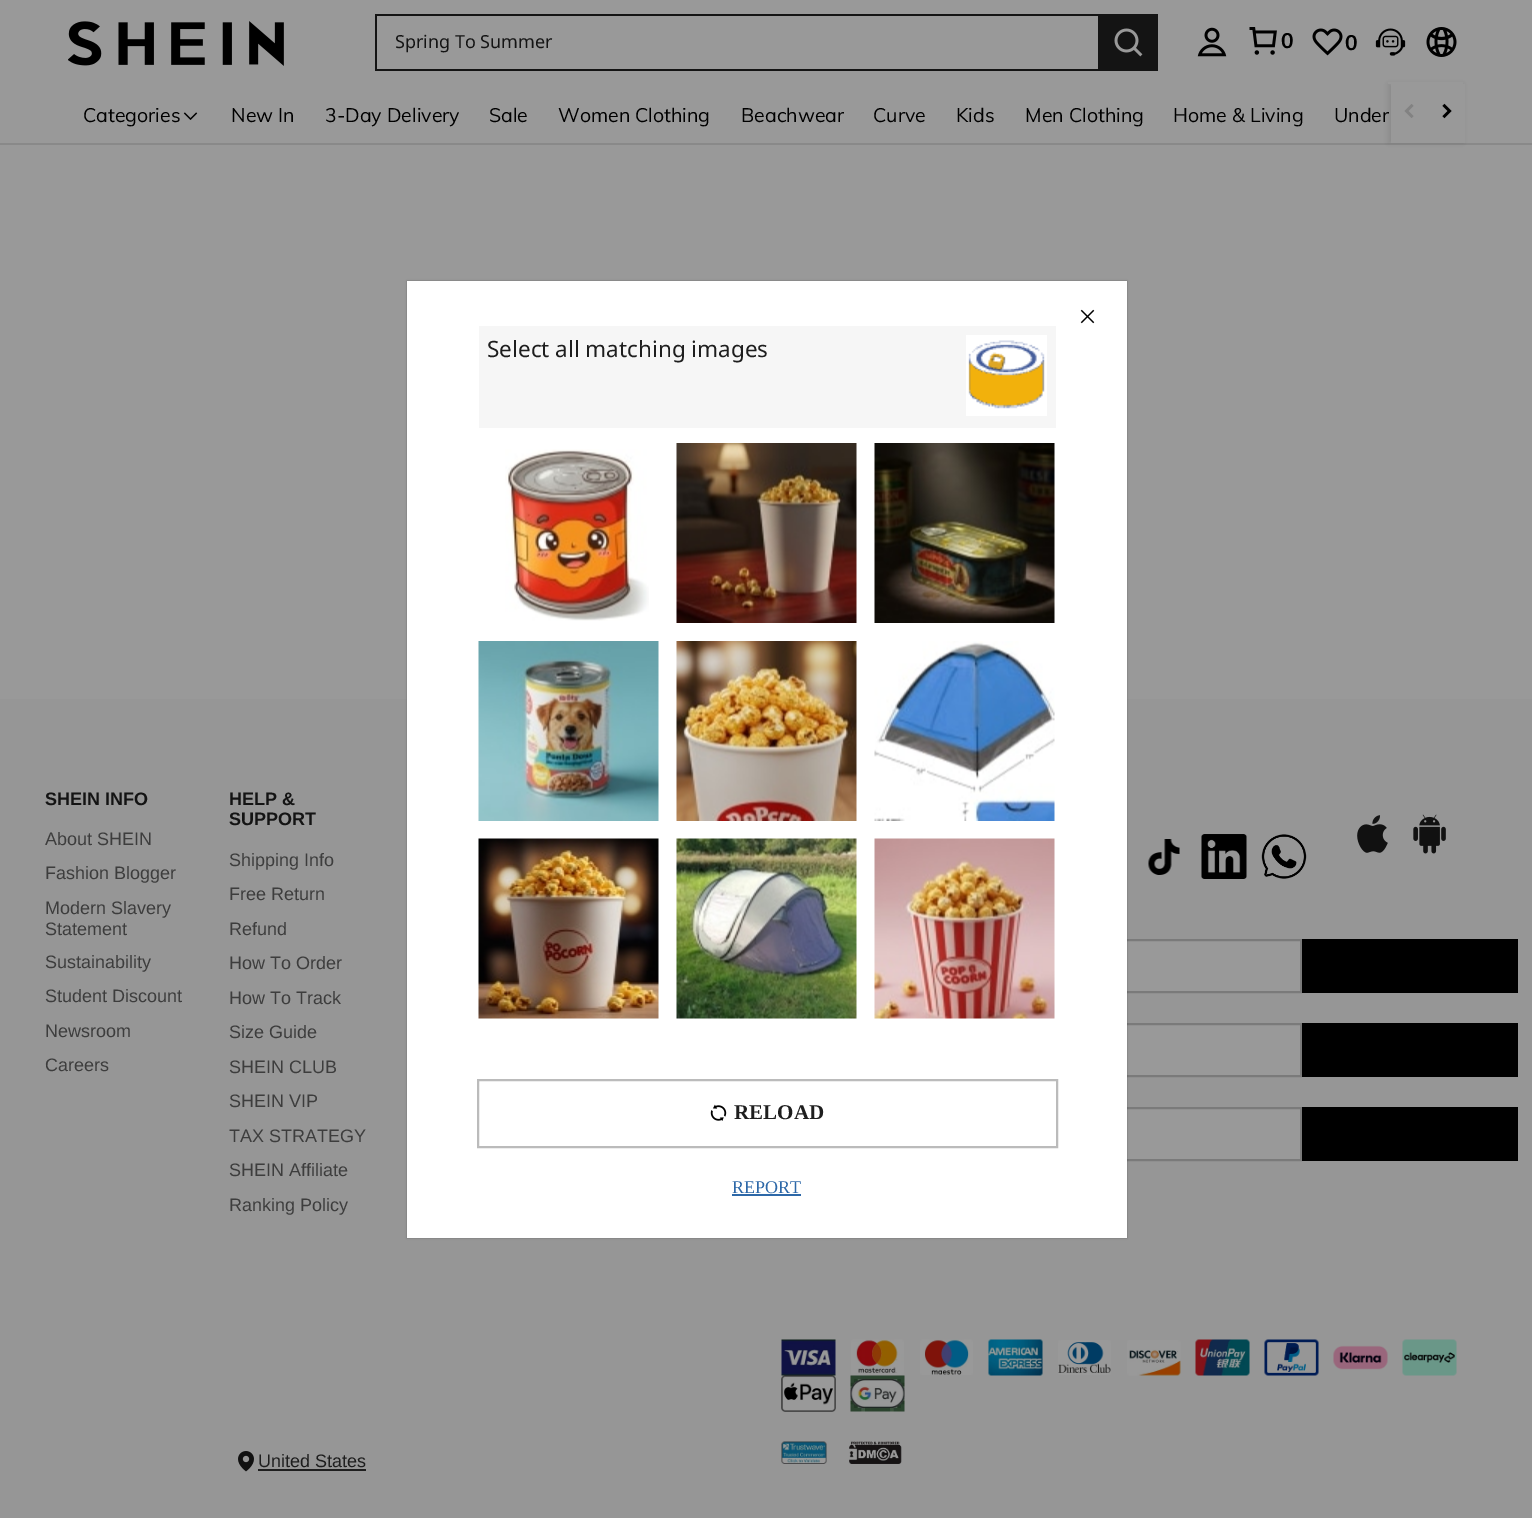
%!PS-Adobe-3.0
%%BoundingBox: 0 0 1532 1518
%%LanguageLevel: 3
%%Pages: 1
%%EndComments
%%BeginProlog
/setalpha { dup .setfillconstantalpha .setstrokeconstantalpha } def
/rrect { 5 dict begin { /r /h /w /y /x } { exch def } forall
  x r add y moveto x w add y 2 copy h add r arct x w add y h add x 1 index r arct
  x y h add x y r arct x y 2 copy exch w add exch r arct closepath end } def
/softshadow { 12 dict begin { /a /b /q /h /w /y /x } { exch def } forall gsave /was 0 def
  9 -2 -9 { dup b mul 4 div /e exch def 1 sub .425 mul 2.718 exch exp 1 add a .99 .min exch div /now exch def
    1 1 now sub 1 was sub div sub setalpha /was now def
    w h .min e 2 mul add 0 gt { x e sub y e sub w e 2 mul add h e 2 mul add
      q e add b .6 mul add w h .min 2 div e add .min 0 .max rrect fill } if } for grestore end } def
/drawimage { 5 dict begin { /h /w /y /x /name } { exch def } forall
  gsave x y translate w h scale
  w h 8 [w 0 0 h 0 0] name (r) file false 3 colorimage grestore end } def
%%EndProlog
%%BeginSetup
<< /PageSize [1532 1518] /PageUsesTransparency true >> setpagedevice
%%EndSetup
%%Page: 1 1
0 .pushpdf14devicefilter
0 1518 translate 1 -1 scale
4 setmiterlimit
0.6 setgray
0 0 1532 1518 rectfill
0.537 setgray
0 143 1532 2 rectfill
0 setgray
1388 84 75 59 0 2 0.08 softshadow
0.6 setgray
1388 82 75 2 rectfill
(images/1.raw) 68 21 216 45 drawimage
0.078 setgray
375 14 723 2 rectfill
375 69 723 2 rectfill
375 14 2 57 rectfill
1098 14 60 57 rectfill
(images/2.raw) 1114 28 29 29 drawimage
(images/3.raw) 1197 27 30 30 drawimage
(images/4.raw) 1249 27 28 28 drawimage
(images/5.raw) 1312 28 31 28 drawimage
(images/6.raw) 1375 28 31 28 drawimage
(images/7.raw) 1426 27 31 30 drawimage
(images/8.raw) 183 112 15 8 drawimage
0.6 setgray
1391 84 74 59 rectfill
(images/9.raw) 1404 104 10 14 drawimage
(images/10.raw) 1442 103 10 16 drawimage
0.588 setgray
0 699 1532 819 rectfill
(images/11.raw) 1148 839 32 36 drawimage
(images/12.raw) 1201 834 46 45 drawimage
(images/13.raw) 1261 834 46 45 drawimage
(images/14.raw) 1357 815 31 38 drawimage
(images/15.raw) 1413 814 33 40 drawimage
0.6 setgray
1127 941 173 50 rectfill
0.478 setgray
2 setlinewidth
783 940 518 52 rectstroke
0 setgray
1302 939 216 54 rectfill
0.6 setgray
1127 1025 173 50 rectfill
0.478 setgray
903 1024 398 52 rectstroke
0 setgray
1302 1023 216 54 rectfill
0.6 setgray
1127 1109 173 50 rectfill
0.478 setgray
903 1108 398 52 rectstroke
0 setgray
1302 1107 216 54 rectfill
(images/16.raw) 781 1339 55 37 drawimage
(images/17.raw) 851 1339 53 36 drawimage
(images/18.raw) 920 1339 53 36 drawimage
(images/19.raw) 988 1339 55 37 drawimage
(images/20.raw) 1058 1340 53 35 drawimage
(images/21.raw) 1127 1340 54 36 drawimage
(images/22.raw) 1195 1339 55 37 drawimage
(images/23.raw) 1264 1339 55 37 drawimage
(images/24.raw) 1333 1345 55 25 drawimage
(images/25.raw) 1402 1339 55 37 drawimage
(images/26.raw) 781 1375 55 37 drawimage
(images/27.raw) 850 1375 55 37 drawimage
(images/28.raw) 238 1451 16 21 drawimage
0.118 setgray
258 1469 108 2 rectfill
(images/29.raw) 781 1441 46 23 drawimage
(images/30.raw) 849 1441 53 23 drawimage
0 setgray
407 281 720 957 0 1 0.3 softshadow
1 setgray
407 281 720 957 rectfill
(images/31.raw) 1080 309 15 15 drawimage
0.965 setgray
479 326 577 102 rectfill
1 setgray
966 335 81 81 rectfill
(images/32.raw) 968 340 77 69 drawimage
(images/33.raw) 505 449 144 172 drawimage
(images/34.raw) 676 443 181 180 drawimage
(images/35.raw) 874 443 181 180 drawimage
(images/36.raw) 478 641 181 180 drawimage
(images/37.raw) 676 641 181 180 drawimage
(images/38.raw) 874 641 181 180 drawimage
(images/39.raw) 478 838 181 181 drawimage
(images/40.raw) 676 838 181 181 drawimage
(images/41.raw) 874 838 181 181 drawimage
0.733 setgray
478 1080 579 67 rectstroke
(images/42.raw) 710 1104 17 17 drawimage
0.176 0.408 0.659 setrgbcolor
732 1194 69 2 rectfill
/NotoSans-Regular [18 0 0 -18 0 0] selectfont
0.078 setgray
395 48 moveto (Spring To Summer) show
/Muli-Bold [21 0 0 -21 0 0] selectfont
0 setgray
1281 48 moveto (0) show
1345 50 moveto (0) show
/Muli-Regular [19.5 0 0 -19.5 0 0] selectfont
83 122 moveto (Categories) show
231 122 moveto (New In) show
325 122 moveto (3-Day Delivery) show
489 122 moveto (Sale) show
558 122 moveto (Women Clothing) show
741 122 moveto (Beachwear) show
873 122 moveto (Curve) show
956 122 moveto (Kids) show
1025 122 moveto (Men Clothing) show
1173 122 moveto (Home & Living) show
1334 122 moveto (Under) show
/LiberationSans-Bold [18 0 0 -18 0 0] selectfont
0.078 setgray
45 805 moveto (SHEIN INFO) show
/LiberationSans-Regular [18 0 0 -18 0 0] selectfont
0.239 setgray
45 845 moveto (About SHEIN) show
45 879 moveto (Fashion Blogger) show
45 914 moveto (Modern Slavery) show
45 935 moveto (Statement) show
45 968 moveto (Sustainability) show
45 1002 moveto (Student Discount) show
45 1037 moveto (Newsroom) show
45 1071 moveto (Careers) show
/LiberationSans-Bold [18 0 0 -18 0 0] selectfont
0.078 setgray
229 805 moveto (HELP &) show
229 825 moveto (SUPPORT) show
/LiberationSans-Regular [18 0 0 -18 0 0] selectfont
0.239 setgray
229 866 moveto (Shipping Info) show
229 900 moveto (Free Return) show
229 935 moveto (Refund) show
229 969 moveto (How To Order) show
229 1004 moveto (How To Track) show
229 1038 moveto (Size Guide) show
229 1073 moveto (SHEIN CLUB) show
229 1107 moveto (SHEIN VIP) show
229 1142 moveto (TAX STRATEGY) show
229 1176 moveto (SHEIN Affiliate) show
229 1211 moveto (Ranking Policy) show
0.118 setgray
258 1467 moveto (United States) show
/NotoSans-Regular [22.5 0 0 -22.5 0 0] selectfont
487 357 moveto (Select all matching images) show
/LiberationSerif-Bold [21 0 0 -21 0 0] selectfont
734 1119 moveto (RELOAD) show
/LiberationSerif-Regular [18 0 0 -18 0 0] selectfont
0.176 0.408 0.659 setrgbcolor
732 1193 moveto (REPORT) show
.poppdf14devicefilter showpage
%%EOF
